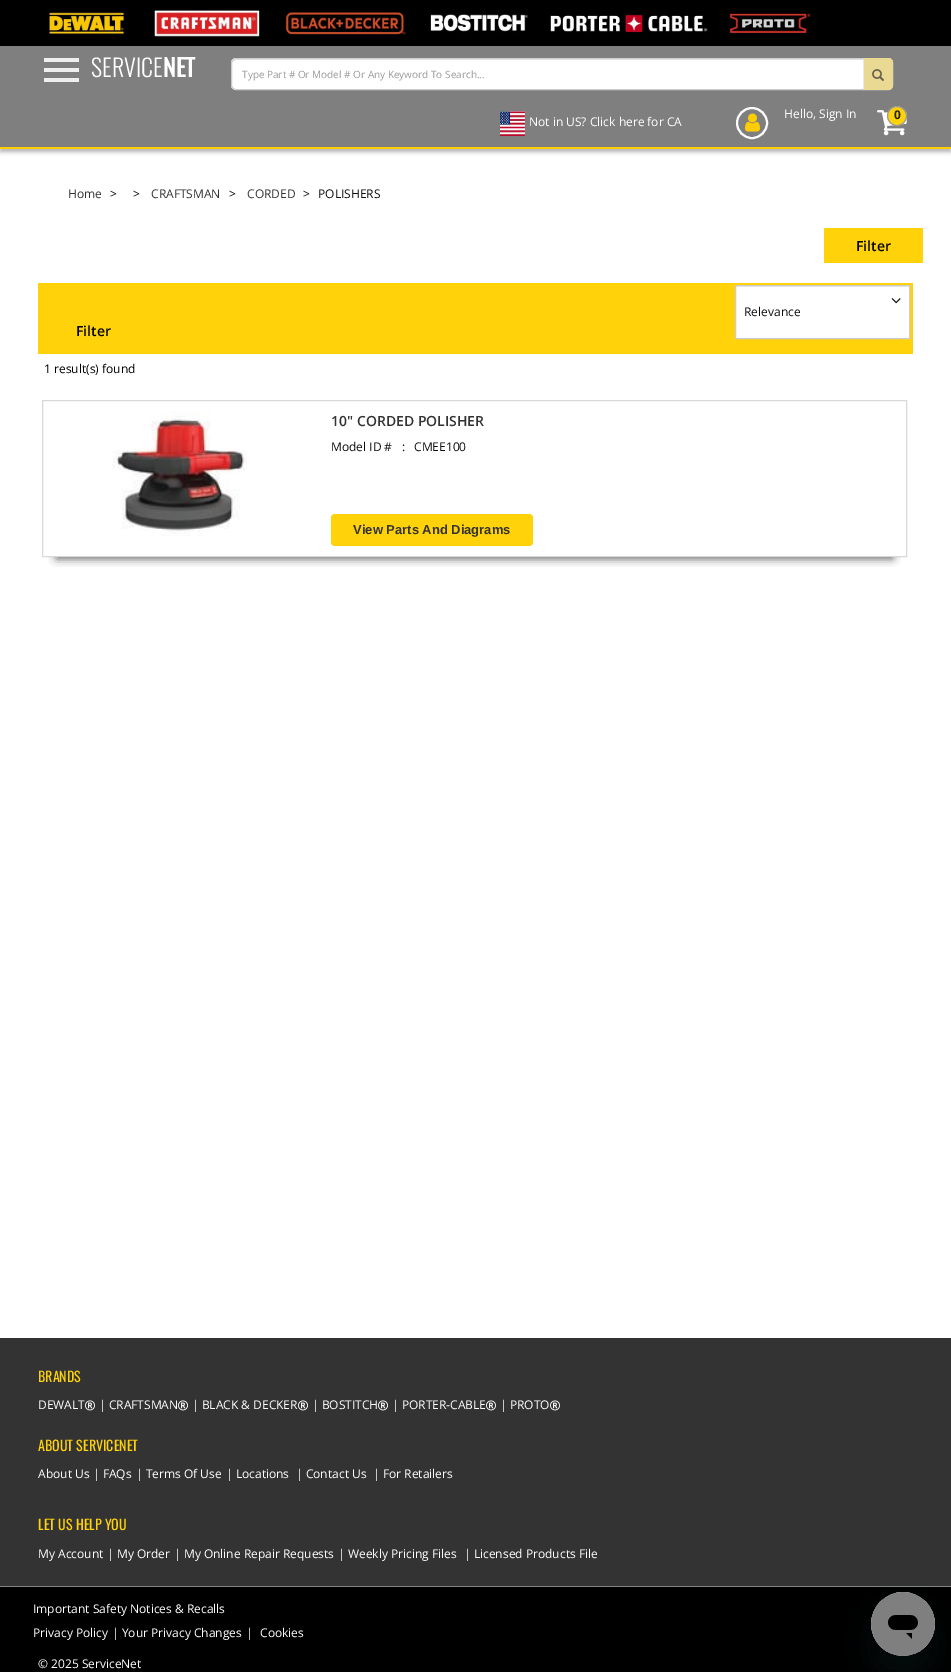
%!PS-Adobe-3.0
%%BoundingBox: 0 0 951 1672
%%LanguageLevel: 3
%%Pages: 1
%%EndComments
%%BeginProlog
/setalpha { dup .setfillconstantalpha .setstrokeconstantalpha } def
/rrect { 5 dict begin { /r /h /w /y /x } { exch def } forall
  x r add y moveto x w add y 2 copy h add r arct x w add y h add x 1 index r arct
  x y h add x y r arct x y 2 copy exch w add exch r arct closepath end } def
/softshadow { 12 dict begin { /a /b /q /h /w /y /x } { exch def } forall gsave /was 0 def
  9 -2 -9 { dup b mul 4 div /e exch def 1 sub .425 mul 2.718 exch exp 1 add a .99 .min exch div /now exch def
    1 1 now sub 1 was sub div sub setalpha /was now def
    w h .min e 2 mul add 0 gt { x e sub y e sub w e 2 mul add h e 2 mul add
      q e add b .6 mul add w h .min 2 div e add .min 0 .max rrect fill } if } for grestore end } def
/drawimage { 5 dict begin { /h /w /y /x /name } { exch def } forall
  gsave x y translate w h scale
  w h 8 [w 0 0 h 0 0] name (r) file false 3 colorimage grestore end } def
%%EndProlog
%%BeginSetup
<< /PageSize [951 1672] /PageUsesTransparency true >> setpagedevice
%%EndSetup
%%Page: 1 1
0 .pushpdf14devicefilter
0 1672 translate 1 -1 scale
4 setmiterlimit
1 setgray
0 0 951 1672 rectfill
0 setgray
0 3 951 149 0 2 0.28 softshadow
0 0 951 46 rectfill
(images/1.raw) 49 10 763 27 drawimage
0.498 setgray
0 46 951 101 rectfill
0.992 0.8 0.004 setrgbcolor
0 147 951 2 rectfill
0.937 setgray
44 58 35 4 rectfill
44 68 35 4 rectfill
44 78 35 4 rectfill
1 setgray
231 58 662 32 5 rrect fill
0.925 setgray
newpath 236 60 moveto 888 60 lineto 890 60 892 62 892 64 curveto 892 61 891 59 888 59 curveto 236 59 lineto 233 60 lineto 232 61 lineto 232 64 lineto 232 62 234 60 236 60 curveto closepath fill
0.8 setgray
231.5 58.5 661 31 4.5 rrect stroke
1 0.824 0.039 setrgbcolor
newpath 864 58 moveto 888 58 lineto 891 58 893 60 893 63 curveto 893 85 lineto 893 88 891 90 888 90 curveto 864 90 lineto closepath fill
0.65 setalpha
0.867 setgray
newpath 863 58 moveto 888 58 lineto 891 58 893 60 893 63 curveto 893 85 lineto 893 88 891 90 888 90 curveto 863 90 lineto closepath fill
1 setalpha
(images/2.raw) 872 69 12 12 drawimage
0.992 setgray
2 setlinewidth
newpath 752 123 15 0 360 arc closepath stroke
(images/3.raw) 745 113 15 19 drawimage
(images/4.raw) 877 110 30 26 drawimage
1 0.824 0.039 setrgbcolor
newpath 897 116 9.5 0 360 arc closepath gsave fill grestore
0.6 setgray
1 setlinewidth
stroke
(images/5.raw) 500 111 25 25 drawimage
1 0.824 0.039 setrgbcolor
824 228 99 35 rectfill
38 283 875 71 rectfill
1 setgray
736 287 173 51 rectfill
0.925 setgray
736 286 173 1 rectfill
0.8 setgray
735.5 285.5 174 53 rectstroke
(images/6.raw) 891 298 10 6 drawimage
gsave
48 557 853 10 rectclip
0.067 setgray
57 430 835 127 0 5 1 softshadow
grestore
0.847 setgray
42.5 400.5 864 156 rectstroke
(images/7.raw) 112 411 135 125 drawimage
1 0.824 0.039 setrgbcolor
331 514 202 32 4 rrect fill
0.2 setgray
0 1338 951 248 rectfill
(images/8.raw) 85 1400 10 11 drawimage
(images/8.raw) 178 1400 10 11 drawimage
(images/8.raw) 298 1400 10 11 drawimage
(images/8.raw) 378 1400 10 11 drawimage
(images/8.raw) 486 1400 10 11 drawimage
(images/8.raw) 550 1400 10 11 drawimage
0 setgray
0 1587 951 85 rectfill
0.518 setgray
0 1586 951 1 rectfill
0.09 0.286 0.302 setrgbcolor
871 1612 64 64 32 15 0.15 softshadow
(images/9.raw) 871 1592 64 64 drawimage
/Oswald-Light [24 0 0 -24 0 0] selectfont
1 setgray
91 77 moveto (SERVICE) show
/Oswald-Bold [24 0 0 -24 0 0] selectfont
163 77 moveto (NET) show
/OpenSans-Regular [10 0 0 -10 0 0] selectfont
0.6 setgray
242 78 moveto (Type Part # Or Model # Or Any Keyword To Search...) show
/OpenSans-Regular [12 0 0 -12 0 0] selectfont
1 setgray
784 118 moveto (Hello, Sign In) show
/OpenSans-Bold [12 0 0 -12 0 0] selectfont
0.133 setgray
894 119 moveto (0) show
/OpenSans-Regular [12 0 0 -12 0 0] selectfont
1 setgray
529 126 moveto (Not in US? Click here for CA) show
0.2 setgray
68 198 moveto (Home) show
0.051 setgray
110 198 moveto (>) show
133 198 moveto (>) show
0.2 setgray
151 198 moveto (CRAFTSMAN) show
0.051 setgray
229 198 moveto (>) show
0.2 setgray
247 198 moveto (CORDED) show
0.051 setgray
303 198 moveto (>) show
318 198 moveto (POLISHERS) show
/OpenSans-SemiBold [14 0 0 -14 0 0] selectfont
0 setgray
856 251 moveto (Filter) show
/OpenSans-Regular [12 0 0 -12 0 0] selectfont
0.051 setgray
744 316 moveto (Relevance) show
/OpenSans-SemiBold [14 0 0 -14 0 0] selectfont
0 setgray
76 336 moveto (Filter) show
/OpenSans-Regular [12 0 0 -12 0 0] selectfont
44 373 moveto (1 result\(s\) found) show
/OpenSans-SemiBold [14 0 0 -14 0 0] selectfont
0.2 setgray
331 426 moveto (10" CORDED POLISHER) show
/OpenSans-Regular [12 0 0 -12 0 0] selectfont
0.051 setgray
331 451 moveto (Model ID #) show
402 451 moveto (:) show
414 451 moveto (CMEE100) show
/LiberationSans-Bold [13 0 0 -13 0 0] selectfont
0.2 setgray
353 534 moveto (View Parts And Diagrams) show
/Oswald-Regular [14 0 0 -14 0 0] selectfont
1 0.824 0.039 setrgbcolor
38 1382 moveto (BRANDS) show
/OpenSans-Regular [12 0 0 -12 0 0] selectfont
1 setgray
38 1409 moveto (DEWALT) show
99 1409 moveto (| CRAFTSMAN) show
192 1409 moveto (| BLACK & DECKER) show
312 1409 moveto (| BOSTITCH) show
392 1409 moveto (| PORTER-CABLE) show
500 1409 moveto (| PROTO) show
/Oswald-Regular [14 0 0 -14 0 0] selectfont
1 0.824 0.039 setrgbcolor
38 1451 moveto (ABOUT SERVICENET) show
/OpenSans-Regular [12 0 0 -12 0 0] selectfont
1 setgray
38 1478 moveto (About Us) show
93 1478 moveto (| FAQs) show
136 1478 moveto (| Terms Of Use) show
226 1478 moveto (| Locations) show
296 1478 moveto (| Contact Us) show
373 1478 moveto (| For Retailers) show
/Oswald-Regular [14 0 0 -14 0 0] selectfont
1 0.824 0.039 setrgbcolor
38 1530 moveto (LET US HELP YOU) show
/OpenSans-Regular [12 0 0 -12 0 0] selectfont
1 setgray
38 1558 moveto (My Account) show
107 1558 moveto (| My Order) show
174 1558 moveto (| My Online Repair Requests) show
338 1558 moveto (| Weekly Pricing Files) show
464 1558 moveto (| Licensed Products File) show
33 1613 moveto (Important Safety Notices & Recalls) show
33 1637 moveto (Privacy Policy) show
112 1637 moveto (| Your Privacy Changes) show
246 1637 moveto (|) show
260 1637 moveto (Cookies) show
38 1668 moveto (© 2025 ServiceNet) show
.poppdf14devicefilter showpage
%%EOF
